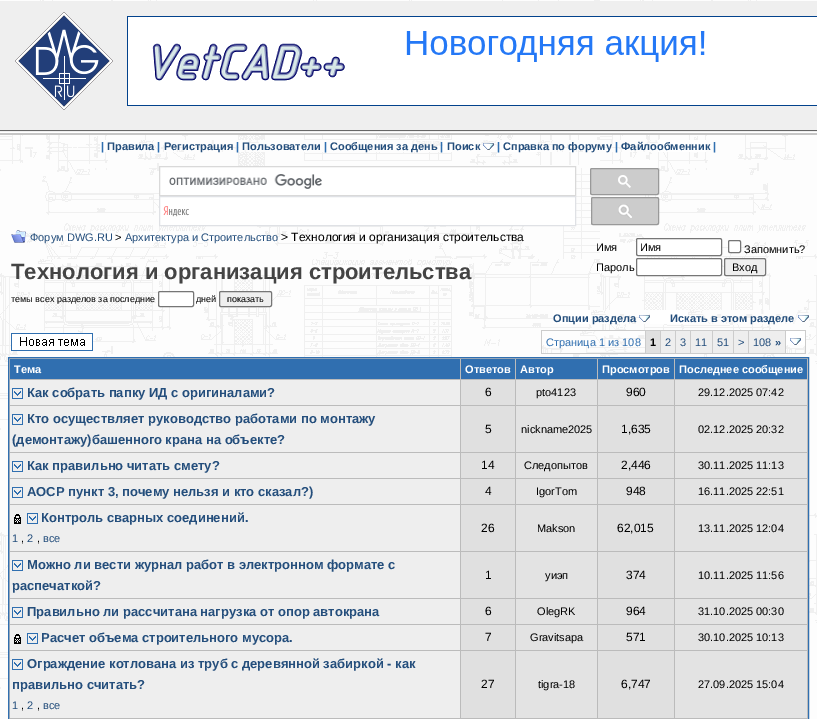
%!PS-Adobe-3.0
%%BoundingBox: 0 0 817 719
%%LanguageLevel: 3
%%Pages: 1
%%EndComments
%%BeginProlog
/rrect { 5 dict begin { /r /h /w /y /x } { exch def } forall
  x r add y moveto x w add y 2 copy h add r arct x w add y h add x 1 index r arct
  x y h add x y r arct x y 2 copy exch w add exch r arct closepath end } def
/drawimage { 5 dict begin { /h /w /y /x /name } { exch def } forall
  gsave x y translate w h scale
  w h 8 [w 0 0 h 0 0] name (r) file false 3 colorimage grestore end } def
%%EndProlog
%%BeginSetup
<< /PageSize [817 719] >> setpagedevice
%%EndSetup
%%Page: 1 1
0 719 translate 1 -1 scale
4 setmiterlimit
1 setgray
0 0 817 719 rectfill
(images/1.raw) 0 0 817 719 drawimage
0.937 setgray
0 1 817 120 rectfill
(images/2.raw) 15 12 98 98 drawimage
(images/3.raw) 127 16 690 90 drawimage
(images/4.raw) 0 121 127 14 drawimage
(images/5.raw) 127 121 690 14 drawimage
1 setgray
102 140 4 12 rectfill
(images/6.raw) 139 140 304 12 drawimage
443 140 9 12 rectfill
(images/7.raw) 481 140 19 10 drawimage
(images/8.raw) 483 143 11 7 drawimage
502 140 204 12 rectfill
(images/9.raw) 538 140 120 12 drawimage
newpath 159.5 166.5 moveto 575.5 166.5 lineto 575.5 195.5 lineto 159.5 195.5 lineto closepath gsave fill grestore
0.851 setgray
stroke
(images/10.raw) 169 174 153 15 drawimage
0.8 setgray
590.5 168.5 68 26 1.5 rrect gsave fill grestore
0.6 setgray
stroke
(images/11.raw) 618 175 13 13 drawimage
1 setgray
160 197 415 28 rectfill
(images/12.raw) 163 206 26 11 drawimage
0.875 0.882 0.898 setrgbcolor
159.5 196.5 416 29 rectstroke
0.8 setgray
591 197 68 28 2 rrect fill
(images/13.raw) 618 204 14 14 drawimage
0.6 setgray
591.5 197.5 67 27 1.5 rrect stroke
(images/14.raw) 11 230 15 13 drawimage
1 setgray
636.5 238.5 85 17 1.5 rrect gsave fill grestore
0.463 setgray
stroke
1 setgray
728.5 240.5 12 12 1.5 rrect gsave fill grestore
0.463 setgray
stroke
1 setgray
636.5 258.5 85 17 1.5 rrect gsave fill grestore
0.463 setgray
stroke
0.937 setgray
724.5 258.5 41 17 1.5 rrect gsave fill grestore
0.463 setgray
stroke
1 setgray
158.5 291.5 35 15 1.5 rrect gsave fill grestore
0.463 setgray
stroke
0.937 setgray
219.5 291.5 52 15 1.5 rrect gsave fill grestore
0.463 setgray
stroke
1 setgray
553 310 38 14 rectfill
(images/15.raw) 591 310 59 14 drawimage
(images/8.raw) 639 315 11 7 drawimage
650 310 38 14 rectfill
(images/16.raw) 688 310 121 14 drawimage
(images/8.raw) 798 315 11 7 drawimage
(images/17.raw) 11 333 82 18 drawimage
0.8 setgray
541 330 265 24 rectfill
(images/18.raw) 542 331 103 22 drawimage
0.878 setgray
646 331 14 22 rectfill
0.933 setgray
661 331 14 22 rectfill
676 331 14 22 rectfill
691 331 21 22 rectfill
713 331 20 22 rectfill
734 331 14 22 rectfill
749 331 36 22 rectfill
1 setgray
786 331 19 14 rectfill
(images/19.raw) 786 345 19 8 drawimage
(images/20.raw) 790 338 11 7 drawimage
0.733 setgray
newpath 8.5 357.5 moveto 808.5 357.5 lineto 808.5 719.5 lineto 8.5 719.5 lineto closepath gsave fill grestore
0.188 0.435 0.69 setrgbcolor
stroke
10 359 450 20 rectfill
461 359 54 20 rectfill
516 359 81 20 rectfill
598 359 76 20 rectfill
675 359 132 20 rectfill
0.933 setgray
10 380 450 25 rectfill
(images/21.raw) 12 388 11 11 drawimage
0.878 setgray
461 380 54 25 rectfill
0.89 setgray
516 380 81 25 rectfill
0.878 setgray
598 380 76 25 rectfill
0.89 setgray
675 380 132 25 rectfill
0.933 setgray
10 406 450 46 rectfill
(images/21.raw) 12 414 11 11 drawimage
0.878 setgray
461 406 54 46 rectfill
0.89 setgray
516 406 81 46 rectfill
0.878 setgray
598 406 76 46 rectfill
0.89 setgray
675 406 132 46 rectfill
0.933 setgray
10 453 450 25 rectfill
(images/21.raw) 12 461 11 11 drawimage
0.878 setgray
461 453 54 25 rectfill
0.89 setgray
516 453 81 25 rectfill
0.878 setgray
598 453 76 25 rectfill
0.89 setgray
675 453 132 25 rectfill
0.933 setgray
10 479 450 25 rectfill
(images/21.raw) 12 487 11 11 drawimage
0.878 setgray
461 479 54 25 rectfill
0.89 setgray
516 479 81 25 rectfill
0.878 setgray
598 479 76 25 rectfill
0.89 setgray
675 479 132 25 rectfill
0.933 setgray
10 505 450 46 rectfill
(images/22.raw) 14 514 7 10 drawimage
(images/21.raw) 27 513 11 11 drawimage
0.878 setgray
461 505 54 46 rectfill
0.89 setgray
516 505 81 46 rectfill
0.878 setgray
598 505 76 46 rectfill
0.89 setgray
675 505 132 46 rectfill
0.933 setgray
10 552 450 46 rectfill
(images/21.raw) 12 560 11 11 drawimage
0.878 setgray
461 552 54 46 rectfill
0.89 setgray
516 552 81 46 rectfill
0.878 setgray
598 552 76 46 rectfill
0.89 setgray
675 552 132 46 rectfill
0.933 setgray
10 599 450 25 rectfill
(images/21.raw) 12 607 11 11 drawimage
0.878 setgray
461 599 54 25 rectfill
0.89 setgray
516 599 81 25 rectfill
0.878 setgray
598 599 76 25 rectfill
0.89 setgray
675 599 132 25 rectfill
0.933 setgray
10 625 450 25 rectfill
(images/22.raw) 14 634 7 10 drawimage
(images/21.raw) 27 633 11 11 drawimage
0.878 setgray
461 625 54 25 rectfill
0.89 setgray
516 625 81 25 rectfill
0.878 setgray
598 625 76 25 rectfill
0.89 setgray
675 625 132 25 rectfill
0.933 setgray
10 651 450 67 rectfill
(images/21.raw) 12 659 11 11 drawimage
0.878 setgray
461 651 54 67 rectfill
0.89 setgray
516 651 81 67 rectfill
0.878 setgray
598 651 76 67 rectfill
0.89 setgray
675 651 132 67 rectfill
/LiberationSans-Bold [11 0 0 -11 0 0] selectfont
0.188 0.435 0.69 setrgbcolor
101 150 moveto (|) show
0.141 0.306 0.486 setrgbcolor
107 150 moveto (Правила) show
0.188 0.435 0.69 setrgbcolor
157 150 moveto (|) show
0.141 0.306 0.486 setrgbcolor
164 150 moveto (Регистрация) show
0.188 0.435 0.69 setrgbcolor
236 150 moveto (|) show
0.141 0.306 0.486 setrgbcolor
242 150 moveto (Пользователи) show
0.188 0.435 0.69 setrgbcolor
324 150 moveto (|) show
0.141 0.306 0.486 setrgbcolor
330 150 moveto (Сообщения за день) show
0.188 0.435 0.69 setrgbcolor
440 150 moveto (|) show
0.141 0.306 0.486 setrgbcolor
447 150 moveto (Поиск) show
0.188 0.435 0.69 setrgbcolor
497 150 moveto (|) show
0.141 0.306 0.486 setrgbcolor
503 150 moveto (Справка по форуму) show
0.188 0.435 0.69 setrgbcolor
615 150 moveto (|) show
0.141 0.306 0.486 setrgbcolor
621 150 moveto (Файлообменник) show
0.188 0.435 0.69 setrgbcolor
713 150 moveto (|) show
/LiberationSans-Regular [11 0 0 -11 0 0] selectfont
0.141 0.306 0.486 setrgbcolor
30 241 moveto (Форум DWG.RU) show
0 setgray
115 241 moveto (>) show
0.141 0.306 0.486 setrgbcolor
125 241 moveto (Архитектура и Строительство) show
/LiberationSans-Regular [12 0 0 -12 0 0] selectfont
0 setgray
281 241 moveto (> Технология и организация строительства) show
/LiberationSans-Bold [22 0 0 -22 0 0] selectfont
0.267 setgray
11 279 moveto (Технология и организация строительства) show
/LiberationSans-Regular [11 0 0 -11 0 0] selectfont
0 setgray
596 251 moveto (Имя) show
640 251 moveto (Имя) show
744 253 moveto (Запомнить?) show
596 271 moveto (Пароль) show
732 271 moveto (Вход) show
/LiberationSans-Regular [9 0 0 -9 0 0] selectfont
11 302 moveto (темы всех разделов за последние) show
196 302 moveto (дней) show
227 302 moveto (показать) show
/LiberationSans-Bold [11 0 0 -11 0 0] selectfont
0.141 0.306 0.486 setrgbcolor
553 322 moveto (Опции раздела) show
670 322 moveto (Искать в этом разделе) show
/LiberationSans-Regular [11 0 0 -11 0 0] selectfont
0.188 0.435 0.69 setrgbcolor
546 346 moveto (Страница 1 из 108) show
/LiberationSans-Bold [11 0 0 -11 0 0] selectfont
0 setgray
650 346 moveto (1) show
/LiberationSans-Regular [11 0 0 -11 0 0] selectfont
0.141 0.306 0.486 setrgbcolor
665 346 moveto (2) show
680 346 moveto (3) show
695 346 moveto (11) show
717 346 moveto (51) show
738 346 moveto (>) show
753 346 moveto (108) show
/LiberationSans-Bold [11 0 0 -11 0 0] selectfont
775 346 moveto (») show
1 setgray
14 373 moveto (Тема) show
465 373 moveto (Ответов) show
520 373 moveto (Автор) show
602 373 moveto (Просмотров) show
679 373 moveto (Последнее сообщение) show
/LiberationSans-Bold [13 0 0 -13 0 0] selectfont
0.141 0.306 0.486 setrgbcolor
27 397 moveto (Как собрать папку ИД с оригиналами?) show
/LiberationSans-Regular [12 0 0 -12 0 0] selectfont
0 setgray
485 396 moveto (6) show
/LiberationSans-Regular [11 0 0 -11 0 0] selectfont
536 396 moveto (pto4123) show
/LiberationSans-Regular [12 0 0 -12 0 0] selectfont
626 396 moveto (960) show
/LiberationSans-Regular [11 0 0 -11 0 0] selectfont
698 396 moveto (29.12.2025 07:42) show
/LiberationSans-Bold [13 0 0 -13 0 0] selectfont
0.141 0.306 0.486 setrgbcolor
27 423 moveto (Кто осуществляет руководство работами по монтажу) show
12 444 moveto (\(демонтажу\)башенного крана на объекте?) show
/LiberationSans-Regular [12 0 0 -12 0 0] selectfont
0 setgray
485 433 moveto (5) show
/LiberationSans-Regular [11 0 0 -11 0 0] selectfont
521 433 moveto (nickname2025) show
/LiberationSans-Regular [12 0 0 -12 0 0] selectfont
621 433 moveto (1,635) show
/LiberationSans-Regular [11 0 0 -11 0 0] selectfont
698 433 moveto (02.12.2025 20:32) show
/LiberationSans-Bold [13 0 0 -13 0 0] selectfont
0.141 0.306 0.486 setrgbcolor
27 470 moveto (Как правильно читать смету?) show
/LiberationSans-Regular [12 0 0 -12 0 0] selectfont
0 setgray
481 469 moveto (14) show
/LiberationSans-Regular [11 0 0 -11 0 0] selectfont
524 469 moveto (Следопытов) show
/LiberationSans-Regular [12 0 0 -12 0 0] selectfont
621 469 moveto (2,446) show
/LiberationSans-Regular [11 0 0 -11 0 0] selectfont
698 469 moveto (30.11.2025 11:13) show
/LiberationSans-Bold [13 0 0 -13 0 0] selectfont
0.141 0.306 0.486 setrgbcolor
27 496 moveto (АОСР пункт 3, почему нельзя и кто сказал?\)) show
/LiberationSans-Regular [12 0 0 -12 0 0] selectfont
0 setgray
485 495 moveto (4) show
/LiberationSans-Regular [11 0 0 -11 0 0] selectfont
536 495 moveto (IgorTom) show
/LiberationSans-Regular [12 0 0 -12 0 0] selectfont
626 495 moveto (948) show
/LiberationSans-Regular [11 0 0 -11 0 0] selectfont
698 495 moveto (16.11.2025 22:51) show
/LiberationSans-Bold [13 0 0 -13 0 0] selectfont
0.141 0.306 0.486 setrgbcolor
41 522 moveto (Контроль сварных соединений.) show
/LiberationSans-Regular [11 0 0 -11 0 0] selectfont
12 542 moveto (1) show
0 setgray
21 542 moveto (,) show
0.141 0.306 0.486 setrgbcolor
27 542 moveto (2) show
0 setgray
37 542 moveto (,) show
0.141 0.306 0.486 setrgbcolor
43 542 moveto (все) show
/LiberationSans-Regular [12 0 0 -12 0 0] selectfont
0 setgray
481 532 moveto (26) show
/LiberationSans-Regular [11 0 0 -11 0 0] selectfont
537 532 moveto (Makson) show
/LiberationSans-Regular [12 0 0 -12 0 0] selectfont
617 532 moveto (62,015) show
/LiberationSans-Regular [11 0 0 -11 0 0] selectfont
698 532 moveto (13.11.2025 12:04) show
/LiberationSans-Bold [13 0 0 -13 0 0] selectfont
0.141 0.306 0.486 setrgbcolor
27 569 moveto (Можно ли вести журнал работ в электронном формате с) show
12 590 moveto (распечаткой?) show
/LiberationSans-Regular [12 0 0 -12 0 0] selectfont
0 setgray
485 579 moveto (1) show
/LiberationSans-Regular [11 0 0 -11 0 0] selectfont
545 579 moveto (уиэп) show
/LiberationSans-Regular [12 0 0 -12 0 0] selectfont
626 579 moveto (374) show
/LiberationSans-Regular [11 0 0 -11 0 0] selectfont
698 579 moveto (10.11.2025 11:56) show
/LiberationSans-Bold [13 0 0 -13 0 0] selectfont
0.141 0.306 0.486 setrgbcolor
27 616 moveto (Правильно ли рассчитана нагрузка от опор автокрана) show
/LiberationSans-Regular [12 0 0 -12 0 0] selectfont
0 setgray
485 615 moveto (6) show
/LiberationSans-Regular [11 0 0 -11 0 0] selectfont
537 615 moveto (OlegRK) show
/LiberationSans-Regular [12 0 0 -12 0 0] selectfont
626 615 moveto (964) show
/LiberationSans-Regular [11 0 0 -11 0 0] selectfont
698 615 moveto (31.10.2025 00:30) show
/LiberationSans-Bold [13 0 0 -13 0 0] selectfont
0.141 0.306 0.486 setrgbcolor
41 642 moveto (Расчет объема строительного мусора.) show
/LiberationSans-Regular [12 0 0 -12 0 0] selectfont
0 setgray
485 641 moveto (7) show
/LiberationSans-Regular [11 0 0 -11 0 0] selectfont
530 641 moveto (Gravitsapa) show
/LiberationSans-Regular [12 0 0 -12 0 0] selectfont
626 641 moveto (571) show
/LiberationSans-Regular [11 0 0 -11 0 0] selectfont
698 641 moveto (30.10.2025 10:13) show
/LiberationSans-Bold [13 0 0 -13 0 0] selectfont
0.141 0.306 0.486 setrgbcolor
27 668 moveto (Ограждение котлована из труб с деревянной забиркой - как) show
12 689 moveto (правильно считать?) show
/LiberationSans-Regular [11 0 0 -11 0 0] selectfont
12 709 moveto (1) show
0 setgray
21 709 moveto (,) show
0.141 0.306 0.486 setrgbcolor
27 709 moveto (2) show
0 setgray
37 709 moveto (,) show
0.141 0.306 0.486 setrgbcolor
43 709 moveto (все) show
/LiberationSans-Regular [12 0 0 -12 0 0] selectfont
0 setgray
481 688 moveto (27) show
/LiberationSans-Regular [11 0 0 -11 0 0] selectfont
538 688 moveto (tigra-18) show
/LiberationSans-Regular [12 0 0 -12 0 0] selectfont
621 688 moveto (6,747) show
/LiberationSans-Regular [11 0 0 -11 0 0] selectfont
698 688 moveto (27.09.2025 15:04) show
showpage
%%EOF
